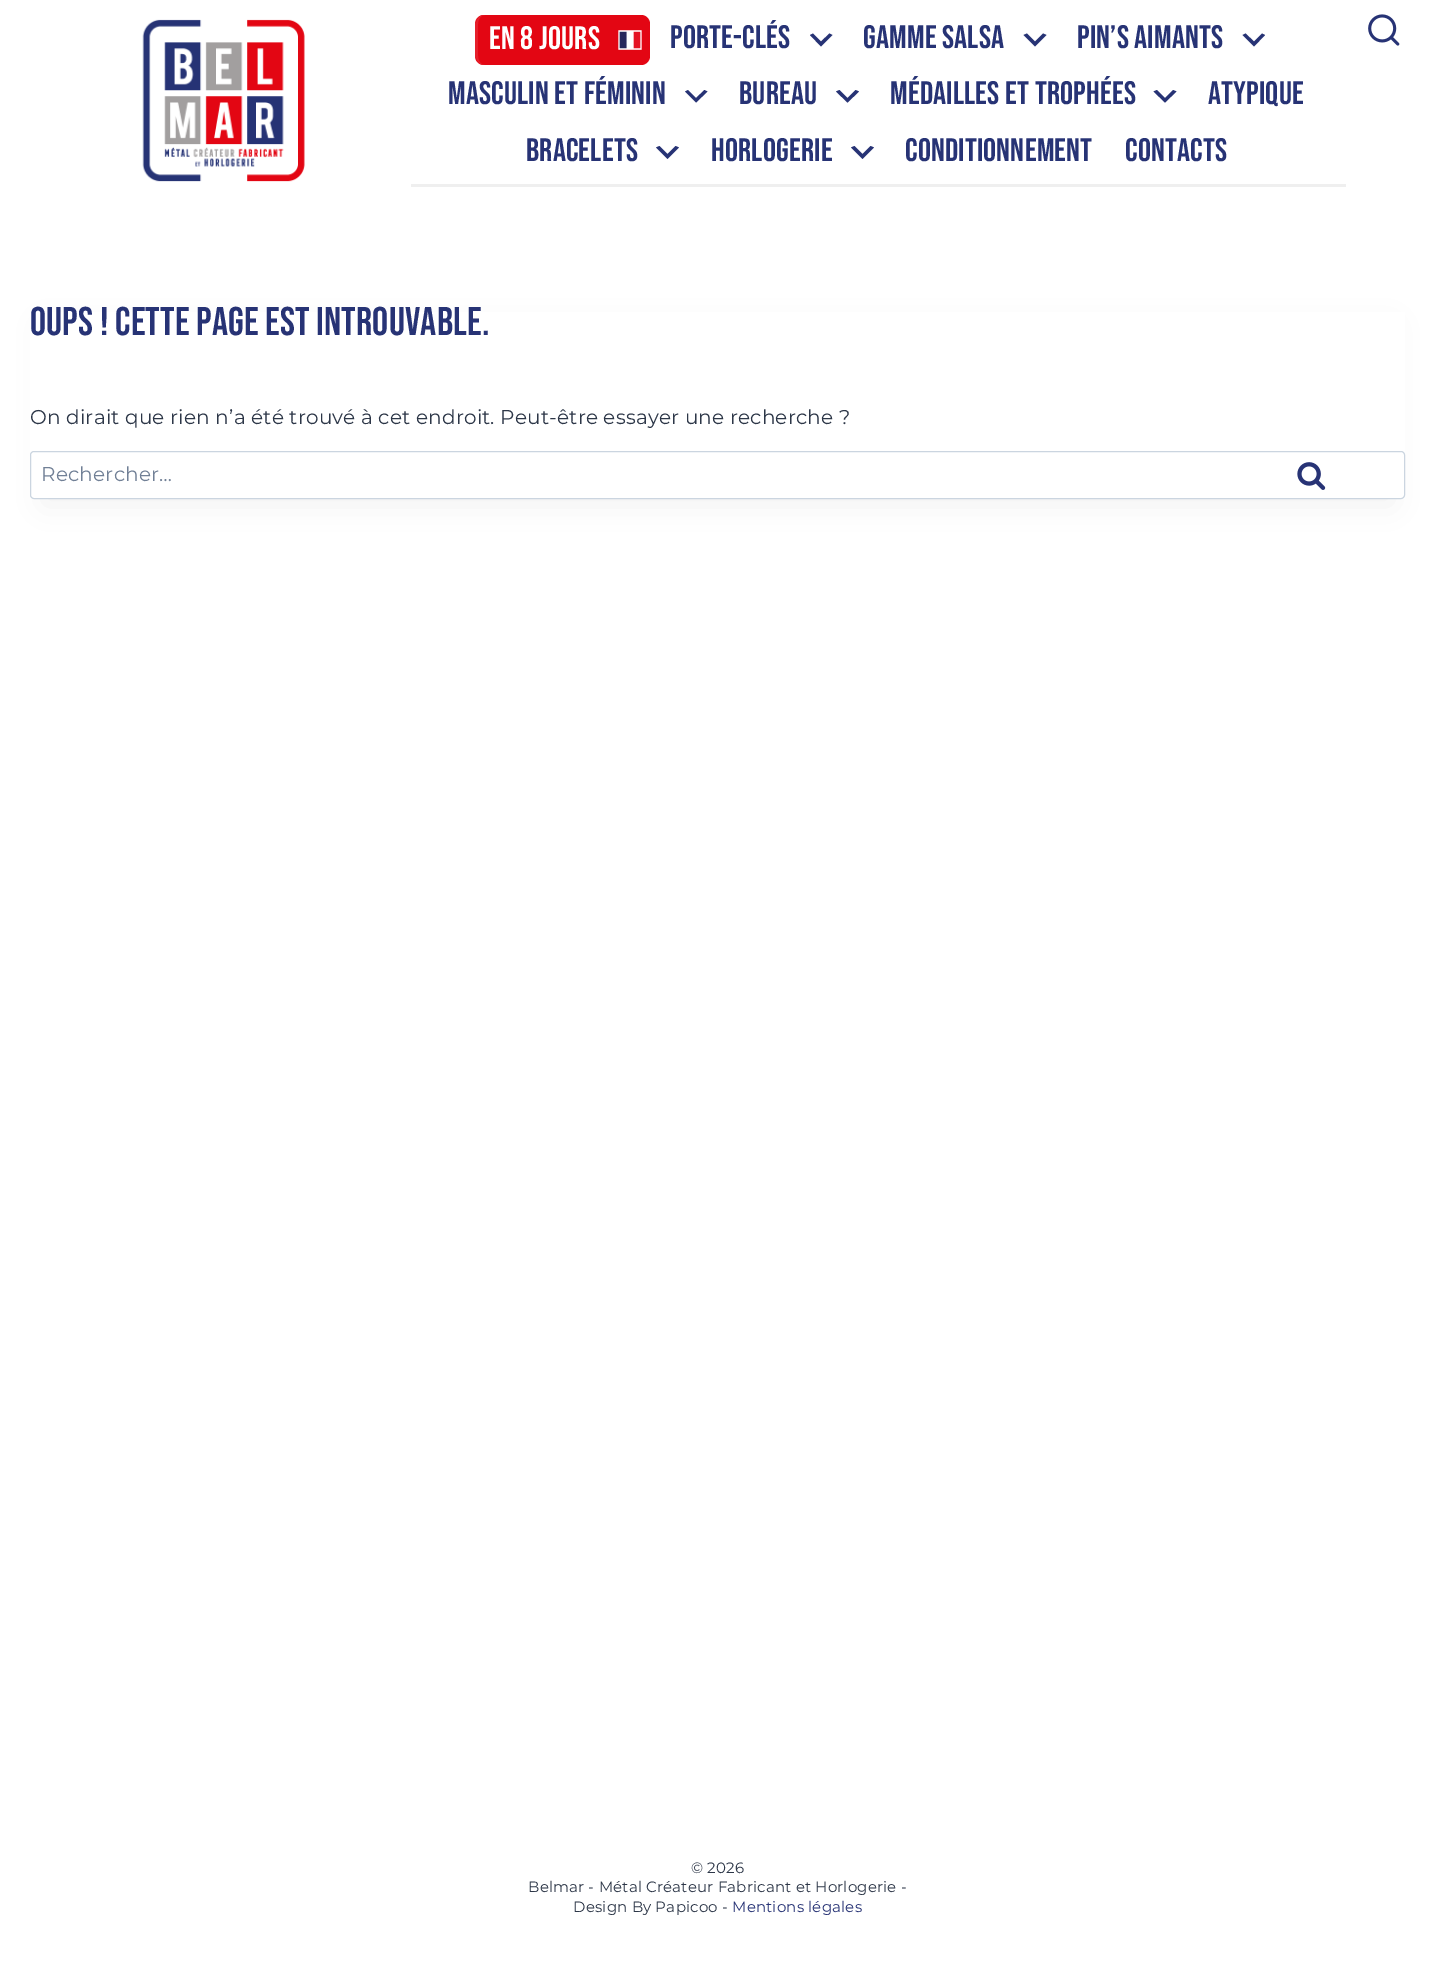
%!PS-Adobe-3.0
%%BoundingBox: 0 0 1434 1968
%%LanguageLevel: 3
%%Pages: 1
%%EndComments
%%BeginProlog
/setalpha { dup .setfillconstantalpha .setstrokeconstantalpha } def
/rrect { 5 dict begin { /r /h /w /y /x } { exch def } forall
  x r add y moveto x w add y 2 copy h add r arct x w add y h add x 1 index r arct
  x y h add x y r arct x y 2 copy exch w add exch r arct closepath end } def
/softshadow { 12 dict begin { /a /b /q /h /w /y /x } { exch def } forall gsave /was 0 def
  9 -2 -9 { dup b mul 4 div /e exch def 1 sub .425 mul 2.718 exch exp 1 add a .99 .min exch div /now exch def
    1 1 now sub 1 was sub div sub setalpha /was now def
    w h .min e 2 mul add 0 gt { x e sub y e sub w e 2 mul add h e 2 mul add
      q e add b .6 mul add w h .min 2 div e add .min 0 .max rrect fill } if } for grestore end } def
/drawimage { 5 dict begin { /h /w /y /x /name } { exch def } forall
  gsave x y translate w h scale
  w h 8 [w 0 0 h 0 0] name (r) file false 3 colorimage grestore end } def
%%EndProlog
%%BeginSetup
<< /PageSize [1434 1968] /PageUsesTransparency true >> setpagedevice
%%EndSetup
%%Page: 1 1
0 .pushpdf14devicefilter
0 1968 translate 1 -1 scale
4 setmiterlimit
1 setgray
0 0 1434 1968 rectfill
(images/1.raw) 142 19 163 163 drawimage
0.937 setgray
411 184 935 3 rectfill
0.89 0.024 0.075 setrgbcolor
475 15 175 50 9 rrect fill
0.902 0.122 0.169 setrgbcolor
newpath 484 15 moveto 480 15 476 19 476 24 curveto 476 56 lineto 476 61 480 65 484 65 curveto 485 65 lineto 481 65 478 61 478 56 curveto 478 24 lineto 478 19 481 15 485 15 curveto closepath fill
0.1 setalpha
1 setgray
475 20 1 41 rectfill
1 setalpha
(images/2.raw) 618 30 24 20 drawimage
0.153 0.2 0.459 setrgbcolor
newpath 813 33.5 moveto 821 41.5 lineto 829.5 33.5 lineto 832.5 35 lineto 821 46.5 lineto 810 35 lineto closepath fill
newpath 1027 33.5 moveto 1035 41.5 lineto 1043 33.5 lineto 1046.5 35 lineto 1035 46.5 lineto 1023.5 35 lineto closepath fill
newpath 1245.5 33.5 moveto 1254 41.5 lineto 1262 33.5 lineto 1265 35 lineto 1254 46.5 lineto 1242.5 35 lineto closepath fill
newpath 688 90 moveto 696 98 lineto 704.5 90 lineto 707.5 91.5 lineto 696 102.5 lineto 685 91.5 lineto closepath fill
newpath 839.5 90 moveto 847.5 98 lineto 855.5 90 lineto 859 91.5 lineto 847.5 102.5 lineto 836 91.5 lineto closepath fill
newpath 1157 90 moveto 1165 98 lineto 1173 90 lineto 1176.5 91.5 lineto 1165 102.5 lineto 1153.5 91.5 lineto closepath fill
newpath 659.5 146 moveto 667.5 154 lineto 675.5 146 lineto 679 147.5 lineto 667.5 159 lineto 656 147.5 lineto closepath fill
newpath 854.5 146 moveto 862.5 154 lineto 870.5 146 lineto 874 147.5 lineto 862.5 159 lineto 851 147.5 lineto closepath fill
(images/3.raw) 1368 14 32 32 drawimage
0 setgray
43 325 1350 180 0 15.5 0.05 softshadow
1 setgray
30 312 1375 187 rectfill
0.796 0.835 0.878 setrgbcolor
30.5 451.5 1374 47 3.5 rrect stroke
(images/4.raw) 1297 462 29 28 drawimage
/BebasNeue-Regular [32.5 0 0 -32.5 0 0] selectfont
1 setgray
489 49 moveto 0.2 0 (En 8 jours) ashow
0.153 0.2 0.459 setrgbcolor
670 48 moveto 0.2 0 (Porte-clés) ashow
863 48 moveto 0.2 0 (Gamme salsa) ashow
1077 48 moveto 0.2 0 (Pin’s aimants) ashow
448 104 moveto 0.2 0 (Masculin et Féminin) ashow
739 104 moveto 0.2 0 (Bureau) ashow
890 104 moveto 0.2 0 (Médailles et Trophées) ashow
1208 104 moveto 0.2 0 (Atypique) ashow
526 161 moveto 0.2 0 (Bracelets) ashow
711 161 moveto 0.2 0 (Horlogerie) ashow
905 161 moveto 0.2 0 (Conditionnement) ashow
1125 161 moveto 0.2 0 (Contacts) ashow
/BebasNeue-Regular [40 0 0 -40 0 0] selectfont
30 335 moveto 0.2 0 (Oups ! Cette page est introuvable.) ashow
/Montserrat-Thin [20 0 0 -20 0 0] selectfont
0.176 0.216 0.282 setrgbcolor
30 424 moveto 0.2 0 (On dirait que rien n’a été trouvé à cet endroit. Peut-être essayer une recherche ?) ashow
0.443 0.502 0.588 setrgbcolor
41 481 moveto 0.2 0 (Rechercher…) ashow
/Montserrat-Thin [15 0 0 -15 0 0] selectfont
0.176 0.216 0.282 setrgbcolor
691 1873 moveto 0.2 0 (© 2026) ashow
528 1892 moveto 0.2 0 (Belmar - Métal Créateur Fabricant et Horlogerie -) ashow
573 1912 moveto 0.2 0 (Design By Papicoo -) ashow
0.153 0.2 0.459 setrgbcolor
732 1912 moveto 0.2 0 (Mentions légales) ashow
.poppdf14devicefilter showpage
%%EOF
